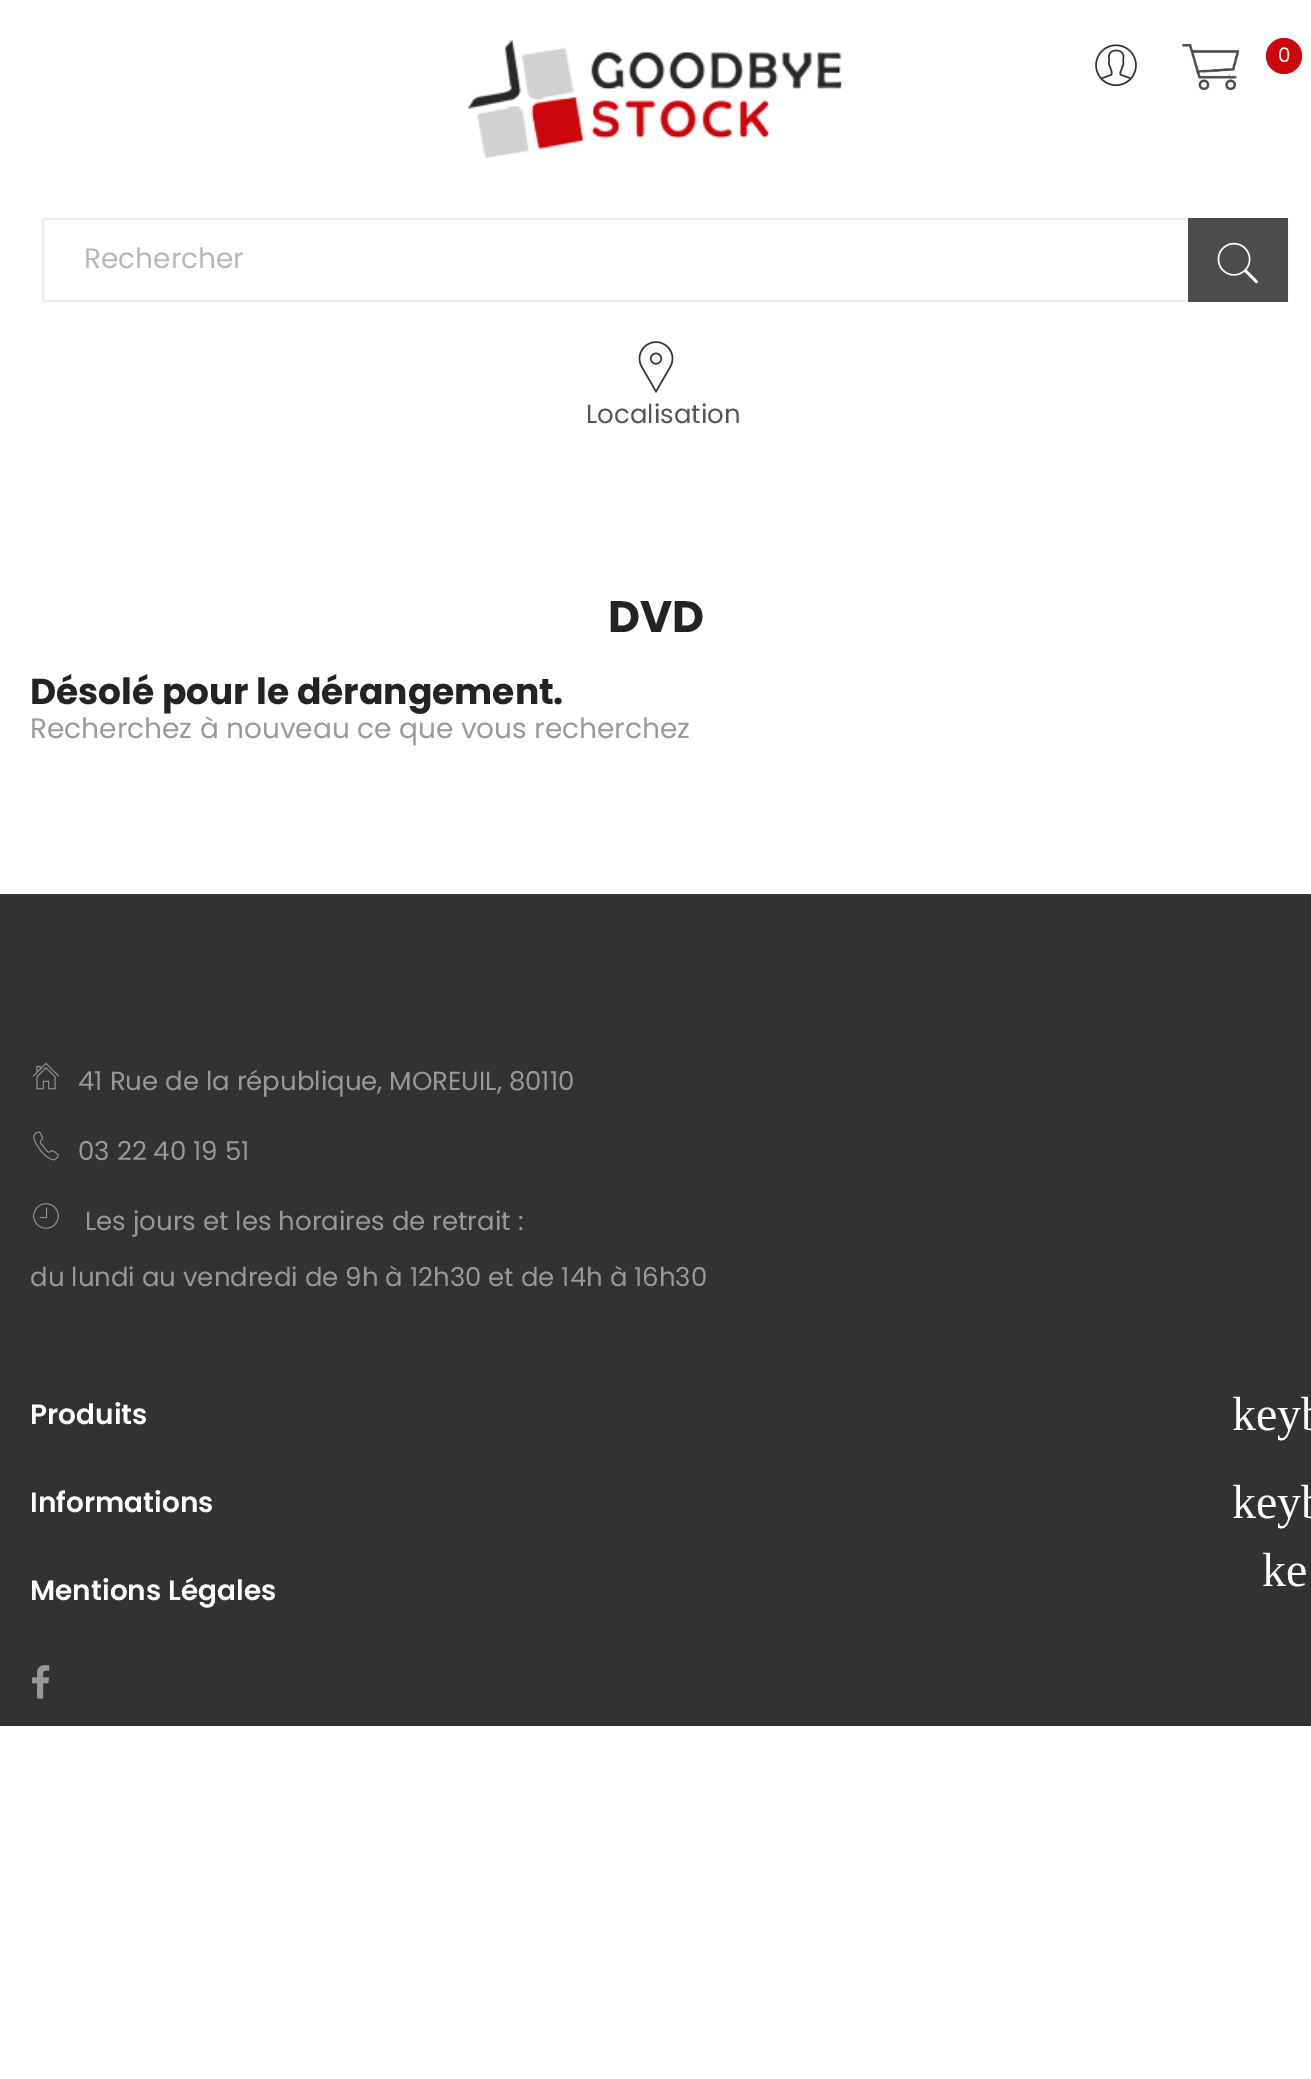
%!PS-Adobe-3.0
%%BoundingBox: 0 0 1311 2079
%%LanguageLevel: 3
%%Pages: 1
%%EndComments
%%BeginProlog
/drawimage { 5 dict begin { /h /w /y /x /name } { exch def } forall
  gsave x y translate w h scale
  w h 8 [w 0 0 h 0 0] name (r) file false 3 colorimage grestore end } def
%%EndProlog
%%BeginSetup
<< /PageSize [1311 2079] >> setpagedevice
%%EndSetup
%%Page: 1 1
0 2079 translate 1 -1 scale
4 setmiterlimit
1 setgray
0 0 1311 2079 rectfill
(images/1.raw) 468 40 375 118 drawimage
(images/2.raw) 1095 44 42 43 drawimage
(images/3.raw) 1182 44 58 46 drawimage
0.796 0.024 0.051 setrgbcolor
newpath 1284 56 18 0 360 arc closepath fill
0.922 setgray
2 setlinewidth
43 219 1244 82 rectstroke
0.298 setgray
1188 218 100 84 rectfill
(images/4.raw) 1217 242 42 42 drawimage
(images/5.raw) 638 341 36 52 drawimage
0.196 setgray
0 894 1311 832 rectfill
(images/6.raw) 32 1062 28 28 drawimage
(images/7.raw) 33 1131 26 30 drawimage
(images/8.raw) 33 1203 26 26 drawimage
(images/9.raw) 31 1665 19 34 drawimage
/Poppins-Regular [20 0 0 -20 0 0] selectfont
1 setgray
1278 62 moveto (0) show
/Poppins-Regular [28 0 0 -28 0 0] selectfont
0.718 setgray
84 268 moveto (Rechercher) show
/Poppins-Regular [26 0 0 -26 0 0] selectfont
0.333 setgray
586 423 moveto (Localisation) show
/Poppins-Bold [44 0 0 -44 0 0] selectfont
0.137 setgray
608 632 moveto (DVD) show
/Poppins-Bold [36 0 0 -36 0 0] selectfont
30 704 moveto (Désolé pour le dérangement.) show
/Poppins-Regular [28 0 0 -28 0 0] selectfont
0.6 setgray
30 738 moveto (Recherchez à nouveau ce que vous recherchez) show
/Poppins-Regular [26 0 0 -26 0 0] selectfont
78 1090 moveto (41 Rue de la république, MOREUIL, 80110) show
78 1160 moveto (03 22 40 19 51) show
85 1230 moveto (Les jours et les horaires de retrait :) show
30 1286 moveto (du lundi au vendredi de 9h à 12h30 et de 14h à 16h30) show
/Poppins-SemiBold [28 0 0 -28 0 0] selectfont
1 setgray
30 1424 moveto (Produits) show
/LiberationSerif-Regular [48 0 0 -48 0 0] selectfont
1232 1430 moveto (keyb) show
/Poppins-SemiBold [28 0 0 -28 0 0] selectfont
30 1512 moveto (Informations) show
/LiberationSerif-Regular [48 0 0 -48 0 0] selectfont
1232 1518 moveto (keyb) show
1262 1586 moveto (ke) show
/Poppins-SemiBold [28 0 0 -28 0 0] selectfont
30 1600 moveto (Mentions Légales) show
showpage
%%EOF
